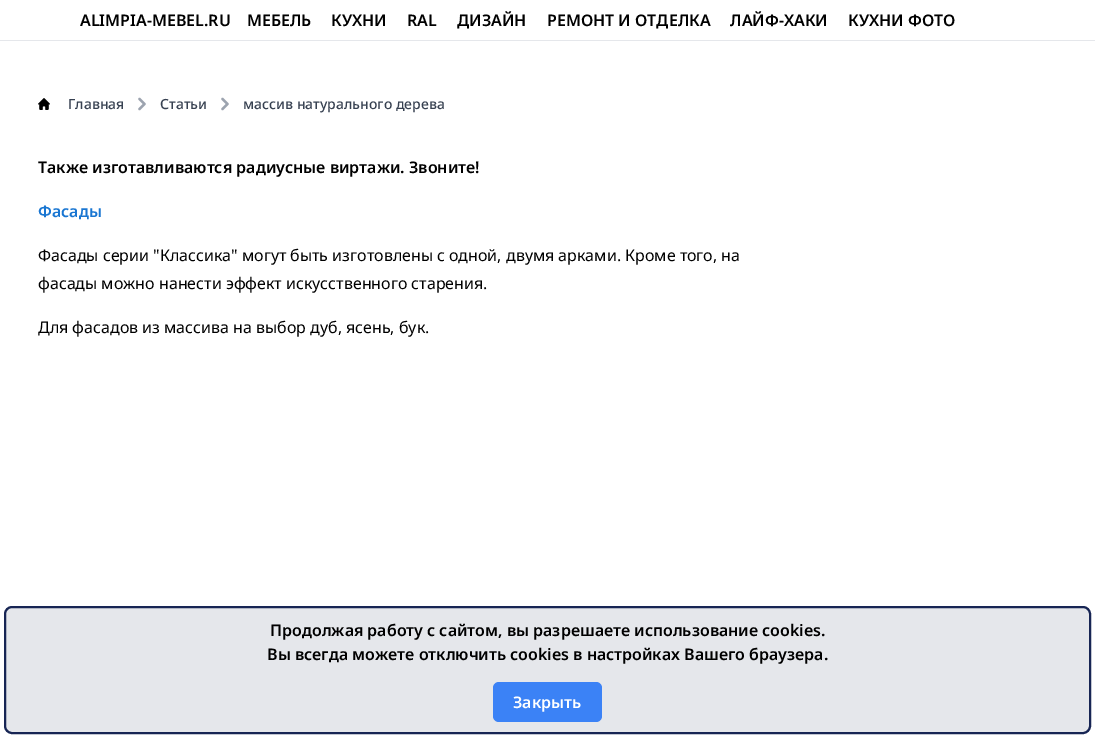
%!PS-Adobe-3.0
%%BoundingBox: 0 0 1095 738
%%LanguageLevel: 3
%%Pages: 1
%%EndComments
%%BeginProlog
/rrect { 5 dict begin { /r /h /w /y /x } { exch def } forall
  x r add y moveto x w add y 2 copy h add r arct x w add y h add x 1 index r arct
  x y h add x y r arct x y 2 copy exch w add exch r arct closepath end } def
/drawimage { 5 dict begin { /h /w /y /x /name } { exch def } forall
  gsave x y translate w h scale
  w h 8 [w 0 0 h 0 0] name (r) file false 3 colorimage grestore end } def
%%EndProlog
%%BeginSetup
<< /PageSize [1095 738] >> setpagedevice
%%EndSetup
%%Page: 1 1
0 738 translate 1 -1 scale
4 setmiterlimit
1 setgray
0 0 1095 738 rectfill
0.898 0.906 0.922 setrgbcolor
0 40 1095 1 rectfill
(images/1.raw) 38 98 12 12 drawimage
0.612 0.639 0.686 setrgbcolor
2.4 setlinewidth
1 setlinecap
1 setlinejoin
newpath 139.5 109 moveto 144.5 104 lineto 139.5 99 lineto stroke
newpath 222.5 109 moveto 227.5 104 lineto 222.5 99 lineto stroke
0.898 0.906 0.922 setrgbcolor
5 607 1085 126 7 rrect gsave fill grestore
0.09 0.145 0.329 setrgbcolor
2 setlinewidth
0 setlinecap
0 setlinejoin
stroke
0.231 0.51 0.965 setrgbcolor
493 682 109 40 6 rrect fill
/NotoSans-SemiBold [16 0 0 -16 0 0] selectfont
0 setgray
80 26 moveto (ALIMPIA-MEBEL.RU) show
247 26 moveto (МЕБЕЛЬ) show
331 26 moveto (КУХНИ) show
407 26 moveto (RAL) show
457 26 moveto (ДИЗАЙН) show
547 26 moveto (РЕМОНТ И ОТДЕЛКА) show
730 26 moveto (ЛАЙФ-ХАКИ) show
848 26 moveto (КУХНИ ФОТО) show
/NotoSans-Medium [14 0 0 -14 0 0] selectfont
0.216 0.255 0.318 setrgbcolor
68 109 moveto (Главная) show
160 109 moveto (Статьи) show
243 109 moveto (массив натурального дерева) show
/NotoSans-SemiBold [16 0 0 -16 0 0] selectfont
0 setgray
38 173 moveto (Также изготавливаются радиусные виртажи. Звоните!) show
0.098 0.463 0.824 setrgbcolor
38 217 moveto (Фасады) show
/NotoSans-Regular [16 0 0 -16 0 0] selectfont
0 setgray
38 261 moveto (Фасады серии "Классика" могут быть изготовлены с одной, двумя арками. Кроме того, на) show
38 289 moveto (фасады можно нанести эффект искусственного старения.) show
38 333 moveto (Для фасадов из массива на выбор дуб, ясень, бук.) show
/NotoSans-SemiBold [16 0 0 -16 0 0] selectfont
270 636 moveto (Продолжая работу с сайтом, вы разрешаете использование cookies.) show
267 660 moveto (Вы всегда можете отключить cookies в настройках Вашего браузера.) show
1 setgray
513 708 moveto (Закрыть) show
showpage
%%EOF
